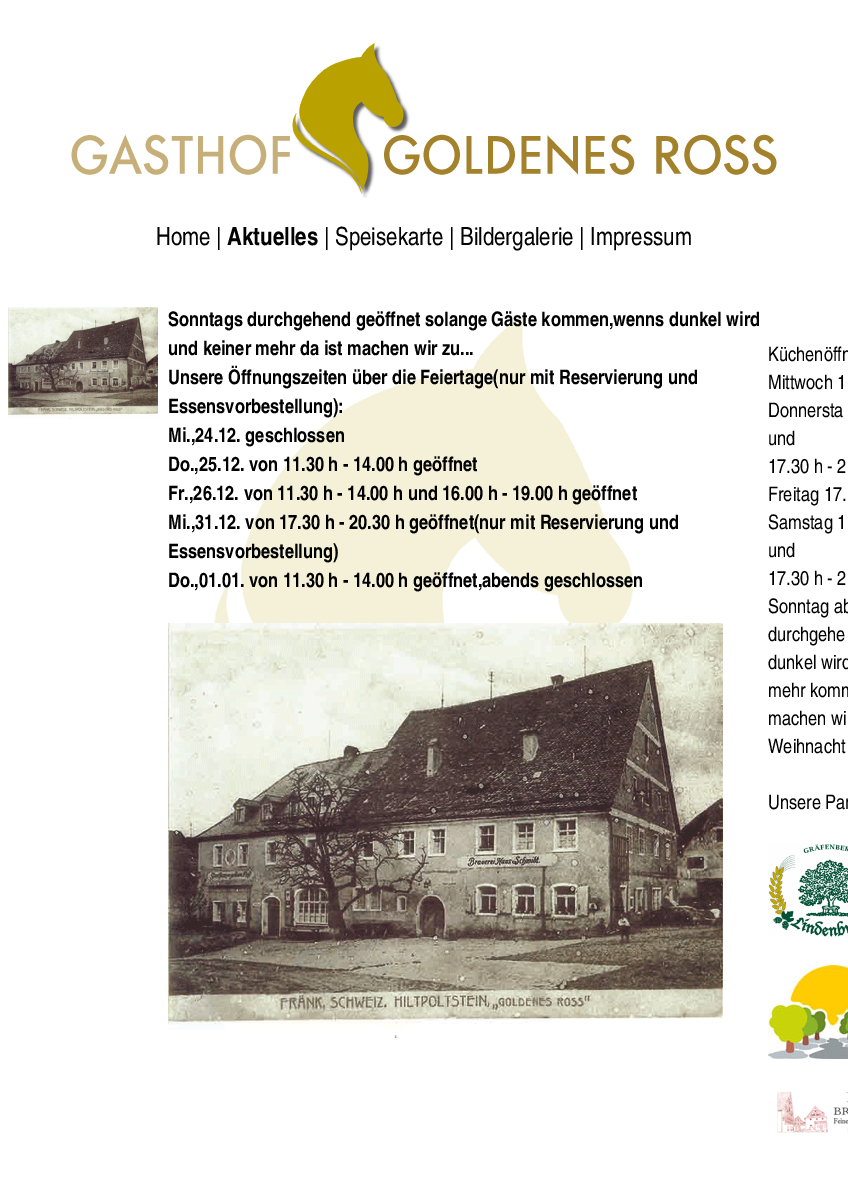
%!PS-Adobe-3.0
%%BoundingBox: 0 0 848 1195
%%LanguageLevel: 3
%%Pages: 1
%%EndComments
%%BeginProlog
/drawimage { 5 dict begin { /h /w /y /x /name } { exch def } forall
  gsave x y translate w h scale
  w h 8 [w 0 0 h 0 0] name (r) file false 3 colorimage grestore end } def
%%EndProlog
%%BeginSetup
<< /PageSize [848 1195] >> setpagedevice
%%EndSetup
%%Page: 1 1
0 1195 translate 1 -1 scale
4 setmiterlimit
1 setgray
0 0 848 1195 rectfill
(images/1.raw) 214 316 420 307 drawimage
(images/2.raw) 71 43 706 155 drawimage
(images/3.raw) 8 307 150 112 drawimage
(images/4.raw) 168 623 555 415 drawimage
(images/5.raw) 768 843 80 94 drawimage
(images/6.raw) 768 965 80 94 drawimage
(images/7.raw) 777 1091 71 42 drawimage
/TeXGyreHerosCn-Regular [25 0 0 -25 0 0] selectfont
0 setgray
156 245 moveto (Home |) show
/TeXGyreHerosCn-Bold [25 0 0 -25 0 0] selectfont
227 245 moveto (Aktuelles) show
/TeXGyreHerosCn-Regular [25 0 0 -25 0 0] selectfont
324 245 moveto (| Speisekarte | Bildergalerie | Impressum) show
/TeXGyreHerosCn-Bold [20 0 0 -20 0 0] selectfont
168 326 moveto (Sonntags durchgehend geöffnet solange Gäste kommen,wenns dunkel wird) show
168 355 moveto (und keiner mehr da ist machen wir zu...) show
168 384 moveto (Unsere Öffnungszeiten über die Feiertage\(nur mit Reservierung und) show
168 413 moveto (Essensvorbestellung\):) show
168 442 moveto (Mi.,24.12. geschlossen) show
168 471 moveto (Do.,25.12. von 11.30 h - 14.00 h geöffnet) show
168 500 moveto (Fr.,26.12. von 11.30 h - 14.00 h und 16.00 h - 19.00 h geöffnet) show
168 529 moveto (Mi.,31.12. von 17.30 h - 20.30 h geöffnet\(nur mit Reservierung und) show
168 558 moveto (Essensvorbestellung\)) show
168 587 moveto (Do.,01.01. von 11.30 h - 14.00 h geöffnet,abends geschlossen) show
/TeXGyreHerosCn-Regular [20 0 0 -20 0 0] selectfont
768 361 moveto (Küchenöffn) show
768 389 moveto (Mittwoch 1) show
768 417 moveto (Donnersta) show
768 445 moveto (und) show
768 473 moveto (17.30 h - 2) show
768 501 moveto (Freitag 17.) show
768 529 moveto (Samstag 1) show
768 557 moveto (und) show
768 585 moveto (17.30 h - 2) show
768 613 moveto (Sonntag ab) show
768 641 moveto (durchgehe) show
768 669 moveto (dunkel wird) show
768 697 moveto (mehr komm) show
768 725 moveto (machen wi) show
768 753 moveto (Weihnacht) show
768 809 moveto (Unsere Par) show
showpage
%%EOF
